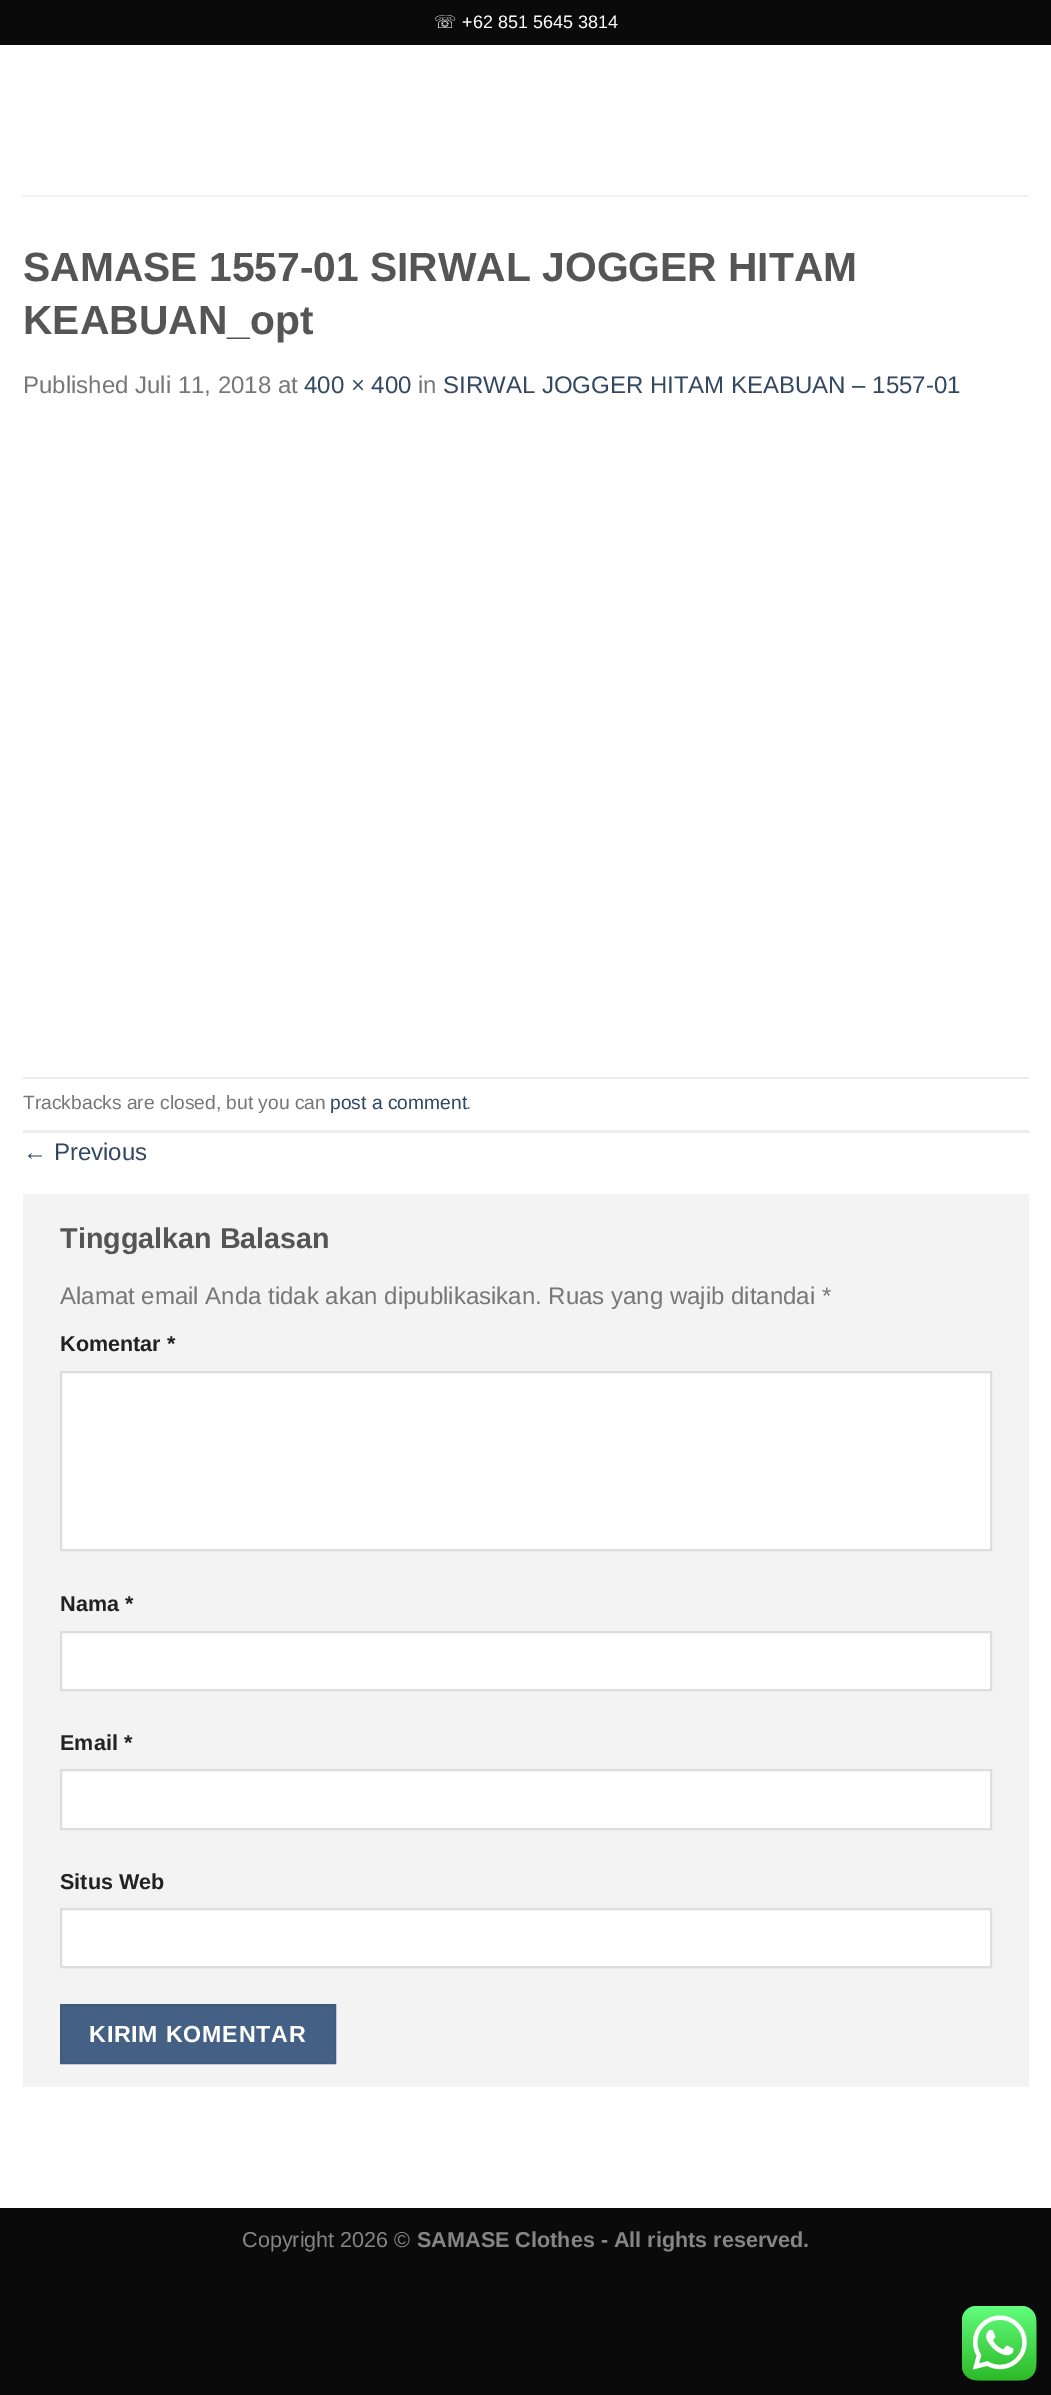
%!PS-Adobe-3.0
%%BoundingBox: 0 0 1051 2395
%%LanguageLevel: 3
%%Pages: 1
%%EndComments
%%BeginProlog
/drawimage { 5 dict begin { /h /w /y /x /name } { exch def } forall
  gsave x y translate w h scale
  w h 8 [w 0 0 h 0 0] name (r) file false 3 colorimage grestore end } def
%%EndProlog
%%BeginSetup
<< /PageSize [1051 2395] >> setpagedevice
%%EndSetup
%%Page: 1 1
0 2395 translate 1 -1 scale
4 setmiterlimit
0.039 setgray
0 0 1051 2395 rectfill
1 setgray
0 45 1051 2163 rectfill
0.945 setgray
23 195 1006 2 rectfill
0.925 setgray
23 1077 1006 2 rectfill
23 1130 1006 3 rectfill
0.953 setgray
23 1194 1006 893 rectfill
1 setgray
newpath 61 1372 moveto 991 1372 lineto 991 1550 lineto 61 1550 lineto closepath gsave fill grestore
0.867 setgray
2 setlinewidth
stroke
1 setgray
newpath 61 1632 moveto 991 1632 lineto 991 1690 lineto 61 1690 lineto closepath gsave fill grestore
0.867 setgray
stroke
1 setgray
newpath 61 1770 moveto 991 1770 lineto 991 1829 lineto 61 1829 lineto closepath gsave fill grestore
0.867 setgray
stroke
1 setgray
newpath 61 1909 moveto 991 1909 lineto 991 1967 lineto 61 1967 lineto closepath gsave fill grestore
0.867 setgray
stroke
0.267 0.376 0.518 setrgbcolor
newpath 61 2005 moveto 335 2005 lineto 335 2063 lineto 61 2063 lineto closepath gsave fill grestore
0.255 0.357 0.49 setrgbcolor
stroke
(images/1.raw) 962 2306 75 75 drawimage
/DejaVuSans-Regular [18 0 0 -18 0 0] selectfont
1 setgray
434 28 moveto (☏) show
/LiberationSans-Regular [18 0 0 -18 0 0] selectfont
462 28 moveto (+62 851 5645 3814) show
/LiberationSans-Bold [40.8 0 0 -40.8 0 0] selectfont
0.333 setgray
23 281 moveto (SAMASE 1557-01 SIRWAL JOGGER HITAM) show
23 334 moveto (KEABUAN_opt) show
/LiberationSans-Regular [24 0 0 -24 0 0] selectfont
0.467 setgray
23 393 moveto (Published Juli 11, 2018 at) show
0.2 0.282 0.384 setrgbcolor
304 393 moveto (400 × 400) show
0.467 setgray
418 393 moveto (in) show
0.2 0.282 0.384 setrgbcolor
443 393 moveto (SIRWAL JOGGER HITAM KEABUAN – 1557-01) show
/LiberationSans-Regular [19.25 0 0 -19.25 0 0] selectfont
0.467 setgray
23 1109 moveto (Trackbacks are closed, but you can) show
0.2 0.282 0.384 setrgbcolor
330 1109 moveto (post a comment) show
0.467 setgray
466 1109 moveto (.) show
/LiberationSans-Regular [24 0 0 -24 0 0] selectfont
0.2 0.282 0.384 setrgbcolor
23 1160 moveto (← Previous) show
/LiberationSans-Bold [28.75 0 0 -28.75 0 0] selectfont
0.333 setgray
60 1248 moveto (Tinggalkan Balasan) show
/LiberationSans-Regular [24 0 0 -24 0 0] selectfont
0.467 setgray
60 1304 moveto (Alamat email Anda tidak akan dipublikasikan. Ruas yang wajib ditandai *) show
/LiberationSans-Bold [21.6 0 0 -21.6 0 0] selectfont
0.133 setgray
60 1351 moveto (Komentar *) show
60 1611 moveto (Nama *) show
60 1750 moveto (Email *) show
60 1889 moveto (Situs Web) show
/LiberationSans-Bold [23.25 0 0 -23.25 0 0] selectfont
1 setgray
89 2042 moveto 0.75 0 (KIRIM KOMENTAR) ashow
/LiberationSans-Regular [21.6 0 0 -21.6 0 0] selectfont
0.522 setgray
242 2247 moveto (Copyright 2026 ©) show
/LiberationSans-Bold [21.6 0 0 -21.6 0 0] selectfont
417 2247 moveto (SAMASE Clothes - All rights reserved.) show
showpage
%%EOF
